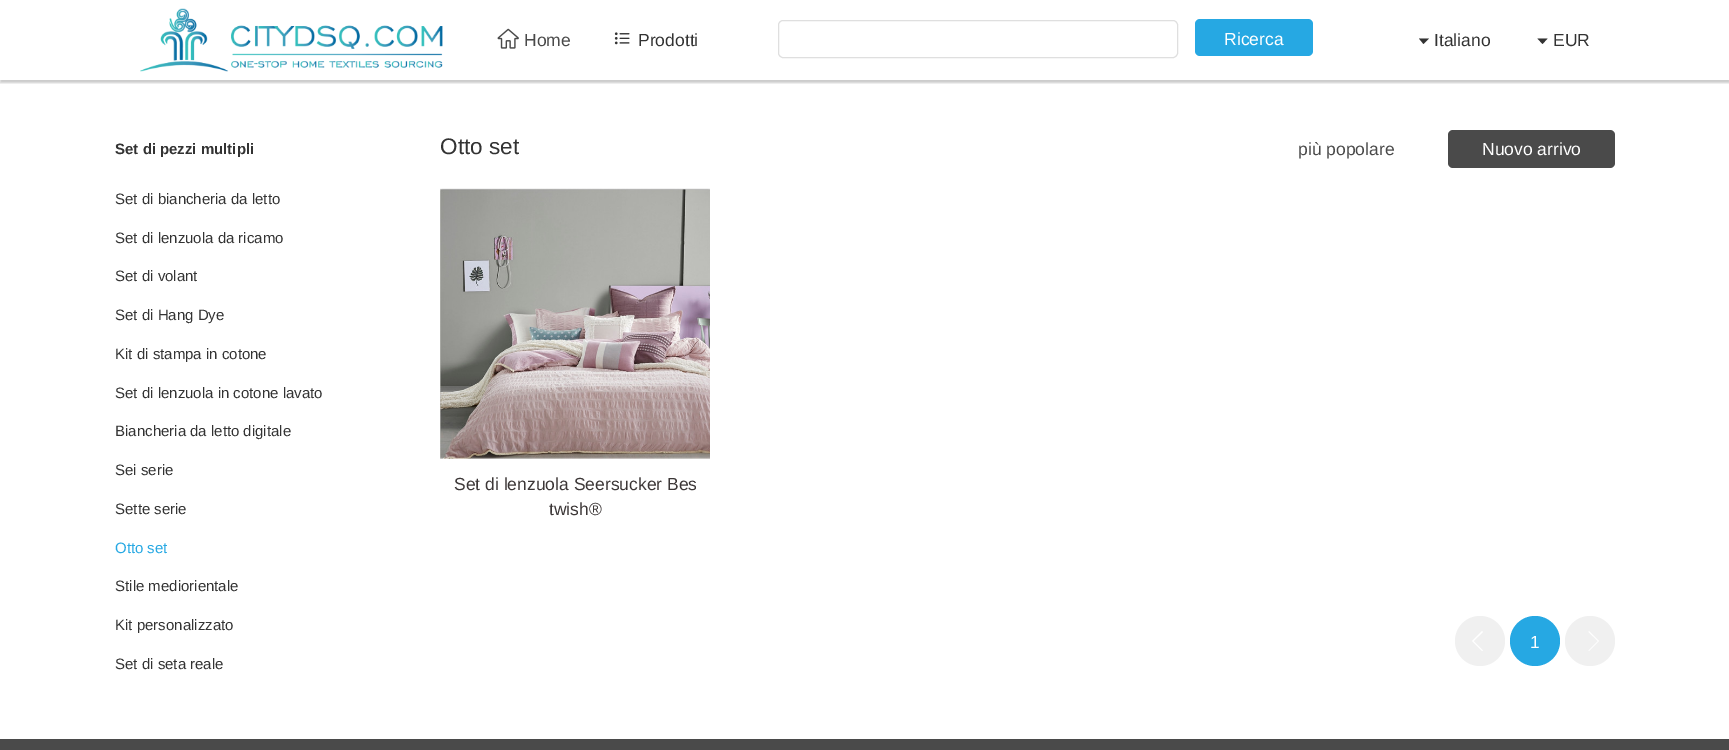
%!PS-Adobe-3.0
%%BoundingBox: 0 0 1729 750
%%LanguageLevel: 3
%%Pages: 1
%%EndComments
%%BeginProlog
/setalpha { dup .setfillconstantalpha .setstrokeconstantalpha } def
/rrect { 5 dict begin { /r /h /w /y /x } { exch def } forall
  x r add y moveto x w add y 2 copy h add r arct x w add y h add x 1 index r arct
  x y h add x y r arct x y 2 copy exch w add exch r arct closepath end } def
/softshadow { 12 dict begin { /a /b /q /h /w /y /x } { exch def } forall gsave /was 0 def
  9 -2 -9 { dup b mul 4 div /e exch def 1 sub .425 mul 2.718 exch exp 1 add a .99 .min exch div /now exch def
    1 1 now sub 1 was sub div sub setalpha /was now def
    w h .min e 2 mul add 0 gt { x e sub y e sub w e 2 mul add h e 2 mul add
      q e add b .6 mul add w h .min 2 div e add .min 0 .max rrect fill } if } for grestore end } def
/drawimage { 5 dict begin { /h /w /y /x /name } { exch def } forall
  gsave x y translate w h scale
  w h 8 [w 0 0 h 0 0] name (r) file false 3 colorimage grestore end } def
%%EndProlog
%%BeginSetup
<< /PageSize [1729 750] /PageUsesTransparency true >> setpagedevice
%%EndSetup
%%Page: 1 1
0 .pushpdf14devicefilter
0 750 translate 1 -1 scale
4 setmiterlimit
1 setgray
0 0 1729 750 rectfill
gsave
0 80 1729 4 rectclip
0 setgray
0 3 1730 80 0 1 0.2 softshadow
grestore
(images/1.raw) 140 8 303 64 drawimage
(images/2.raw) 497 28 22 21 drawimage
(images/3.raw) 614 32 16 13 drawimage
0.875 setgray
778.5 20.5 399 37 4.5 rrect stroke
0.149 0.659 0.89 setrgbcolor
1195 19 118 37 5 rrect fill
0.2 setgray
newpath 1419 38.5 moveto 1429 38.5 lineto 1423.5 44 lineto closepath fill
newpath 1537.5 38.5 moveto 1547.5 38.5 lineto 1542.5 44 lineto closepath fill
0.29 setgray
1448 130 167 38 5 rrect fill
(images/4.raw) 440 188 270 271 drawimage
0.941 setgray
newpath 1480 641 25 0 360 arc closepath fill
1 setgray
newpath 1482 651 moveto 1483 650.5 lineto 1473.5 641 lineto 1483 632 lineto 1482 631 lineto 1472 641 lineto closepath fill
0.149 0.659 0.89 setrgbcolor
newpath 1535 641 25 0 360 arc closepath fill
0.941 setgray
newpath 1590 641 25 0 360 arc closepath fill
1 setgray
newpath 1589 651 moveto 1588.5 650.5 lineto 1598 641 lineto 1588.5 632 lineto 1589 631 lineto 1599 641 lineto closepath fill
0.29 setgray
0 739 1729 11 rectfill
/LiberationSans-Regular [17.5 0 0 -17.5 0 0] selectfont
524 46 moveto (Home) show
0.2 setgray
638 46 moveto (Prodotti) show
1 setgray
1224 45 moveto (Ricerca) show
0.2 setgray
1434 46 moveto (Italiano) show
1553 46 moveto (EUR) show
/LiberationSans-Bold [15 0 0 -15 0 0] selectfont
115 154 moveto (Set di pezzi multipli) show
/LiberationSans-Regular [15 0 0 -15 0 0] selectfont
115 204 moveto (Set di biancheria da letto) show
115 243 moveto (Set di lenzuola da ricamo) show
115 281 moveto (Set di volant) show
115 320 moveto (Set di Hang Dye) show
115 359 moveto (Kit di stampa in cotone) show
115 398 moveto (Set di lenzuola in cotone lavato) show
115 436 moveto (Biancheria da letto digitale) show
115 475 moveto (Sei serie) show
115 514 moveto (Sette serie) show
0.149 0.659 0.89 setrgbcolor
115 553 moveto (Otto set) show
0.2 setgray
115 591 moveto (Stile mediorientale) show
115 630 moveto (Kit personalizzato) show
115 669 moveto (Set di seta reale) show
/LiberationSans-Regular [22.5 0 0 -22.5 0 0] selectfont
440 154 moveto (Otto set) show
/LiberationSans-Regular [17.5 0 0 -17.5 0 0] selectfont
0.29 setgray
1298 155 moveto (più popolare) show
1 setgray
1482 155 moveto (Nuovo arrivo) show
0.235 0.216 0.216 setrgbcolor
454 490 moveto (Set di lenzuola Seersucker Bes) show
549 515 moveto (twish®) show
1 setgray
1530 648 moveto (1) show
.poppdf14devicefilter showpage
%%EOF
